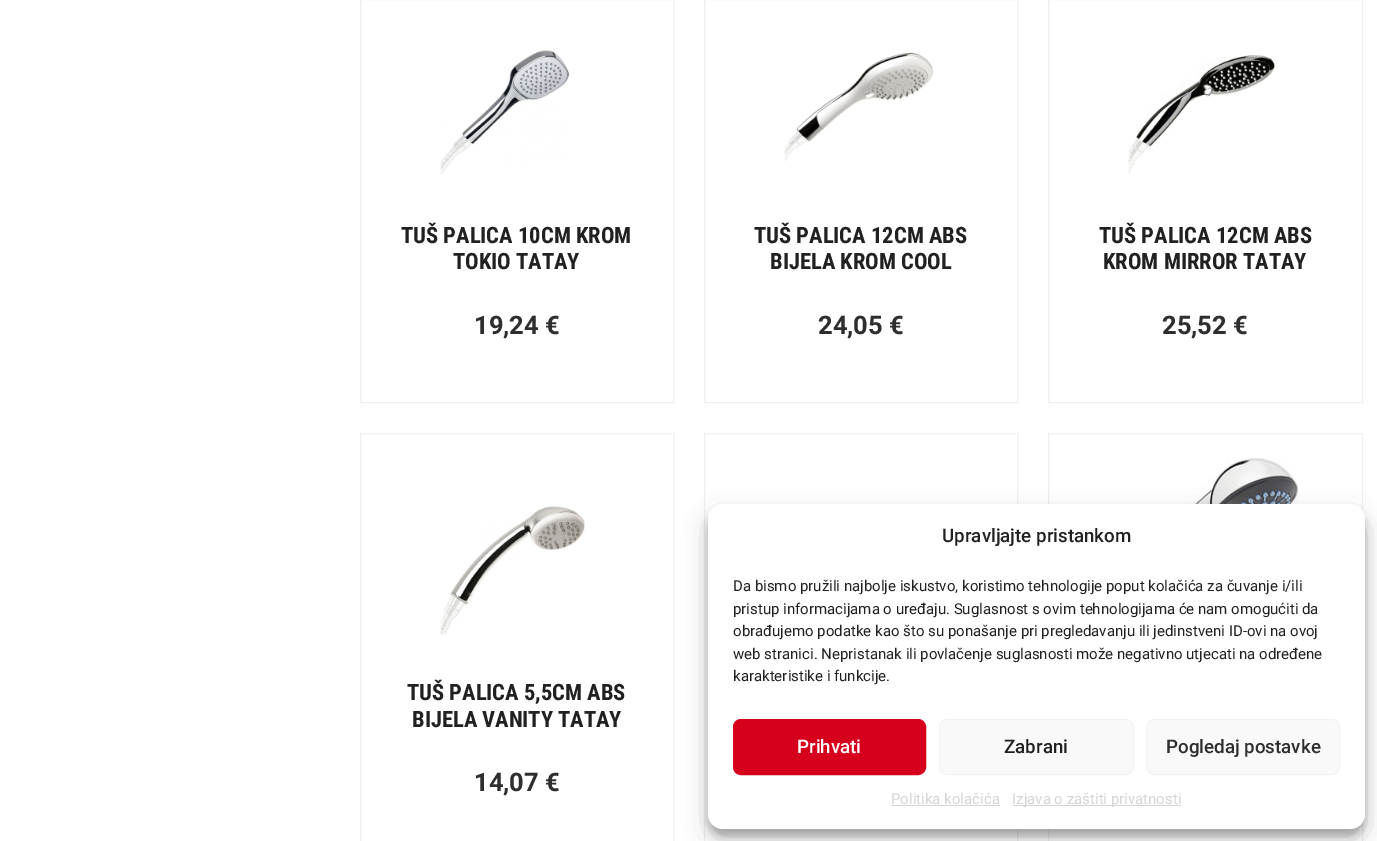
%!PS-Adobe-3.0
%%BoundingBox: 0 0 1377 841
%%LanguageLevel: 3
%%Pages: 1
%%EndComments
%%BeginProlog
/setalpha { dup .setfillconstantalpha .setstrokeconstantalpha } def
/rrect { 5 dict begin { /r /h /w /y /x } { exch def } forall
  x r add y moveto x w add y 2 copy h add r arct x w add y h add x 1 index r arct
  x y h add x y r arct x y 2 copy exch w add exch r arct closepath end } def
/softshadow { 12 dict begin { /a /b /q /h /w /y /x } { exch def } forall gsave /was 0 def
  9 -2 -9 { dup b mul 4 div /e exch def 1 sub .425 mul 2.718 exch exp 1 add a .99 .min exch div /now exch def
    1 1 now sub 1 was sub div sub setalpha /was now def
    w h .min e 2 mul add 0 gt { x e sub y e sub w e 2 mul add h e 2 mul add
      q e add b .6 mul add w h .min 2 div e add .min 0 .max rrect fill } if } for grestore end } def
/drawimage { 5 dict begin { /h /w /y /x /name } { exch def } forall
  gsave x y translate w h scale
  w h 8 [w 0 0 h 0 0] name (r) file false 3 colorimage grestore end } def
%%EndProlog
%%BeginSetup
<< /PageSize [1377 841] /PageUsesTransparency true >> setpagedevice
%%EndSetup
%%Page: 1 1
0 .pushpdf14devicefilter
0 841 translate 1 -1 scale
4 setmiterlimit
1 setgray
0 0 1377 841 rectfill
0.941 setgray
360.5 -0.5 313 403 rectstroke
(images/1.raw) 440 50 129 124 drawimage
704.5 -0.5 313 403 rectstroke
(images/2.raw) 784 52 149 109 drawimage
1048.5 -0.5 314 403 rectstroke
(images/3.raw) 1128 55 147 119 drawimage
360.5 433.5 313 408 rectstroke
(images/4.raw) 440 506 145 129 drawimage
704.5 433.5 313 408 rectstroke
1048.5 433.5 314 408 rectstroke
(images/5.raw) 1113 458 185 46 drawimage
0 setgray
708 511 657 325 15 4 0.23 softshadow
708 516 657 325 15 12.5 0.19 softshadow
1 setgray
708 504 657 325 15 rrect fill
0.839 0 0.11 setrgbcolor
733.5 719.5 192 55 7.5 rrect gsave fill grestore
stroke
0.976 setgray
939.5 719.5 194 55 7.5 rrect gsave fill grestore
0.949 setgray
stroke
0.976 setgray
1146.5 719.5 193 55 7.5 rrect gsave fill grestore
0.949 setgray
stroke
0.835 setgray
891 805 109 1 rectfill
1013 805 168 1 rectfill
/RobotoCondensed-Bold [22.5 0 0 -22.5 0 0] selectfont
0.129 setgray
401 243 moveto (TUŠ PALICA 10CM KROM) show
453 269 moveto (TOKIO TATAY) show
/Roboto-Bold [25.5 0 0 -25.5 0 0] selectfont
0.18 setgray
474 334 moveto (19,24 €) show
/RobotoCondensed-Bold [22.5 0 0 -22.5 0 0] selectfont
0.129 setgray
754 243 moveto (TUŠ PALICA 12CM ABS) show
770 269 moveto (BIJELA KROM COOL) show
/Roboto-Bold [25.5 0 0 -25.5 0 0] selectfont
0.18 setgray
818 334 moveto (24,05 €) show
/RobotoCondensed-Bold [22.5 0 0 -22.5 0 0] selectfont
0.129 setgray
1099 243 moveto (TUŠ PALICA 12CM ABS) show
1103 269 moveto (KROM MIRROR TATAY) show
/Roboto-Bold [25.5 0 0 -25.5 0 0] selectfont
0.18 setgray
1162 334 moveto (25,52 €) show
/RobotoCondensed-Bold [22.5 0 0 -22.5 0 0] selectfont
0.129 setgray
407 700 moveto (TUŠ PALICA 5,5CM ABS) show
412 727 moveto (BIJELA VANITY TATAY) show
/Roboto-Bold [25.5 0 0 -25.5 0 0] selectfont
0.18 setgray
474 791 moveto (14,07 €) show
/Roboto-Medium [18.75 0 0 -18.75 0 0] selectfont
0.129 setgray
942 542 moveto (Upravljajte pristankom) show
/Roboto-Regular [15 0 0 -15 0 0] selectfont
733 591 moveto (Da bismo pružili najbolje iskustvo, koristimo tehnologije poput kolačića za čuvanje i/ili) show
733 614 moveto (pristup informacijama o uređaju. Suglasnost s ovim tehnologijama će nam omogućiti da) show
733 636 moveto (obrađujemo podatke kao što su ponašanje pri pregledavanju ili jedinstveni ID-ovi na ovoj) show
733 659 moveto (web stranici. Nepristanak ili povlačenje suglasnosti može negativno utjecati na određene) show
733 681 moveto (karakteristike i funkcije.) show
/Roboto-Medium [18.75 0 0 -18.75 0 0] selectfont
1 setgray
797 753 moveto (Prihvati) show
0.129 setgray
1004 753 moveto (Zabrani) show
0.18 setgray
1166 753 moveto (Pogledaj postavke) show
/Roboto-Regular [15 0 0 -15 0 0] selectfont
0.835 setgray
891 804 moveto (Politika kolačića) show
1012 804 moveto (Izjava o zaštiti privatnosti) show
.poppdf14devicefilter showpage
%%EOF
